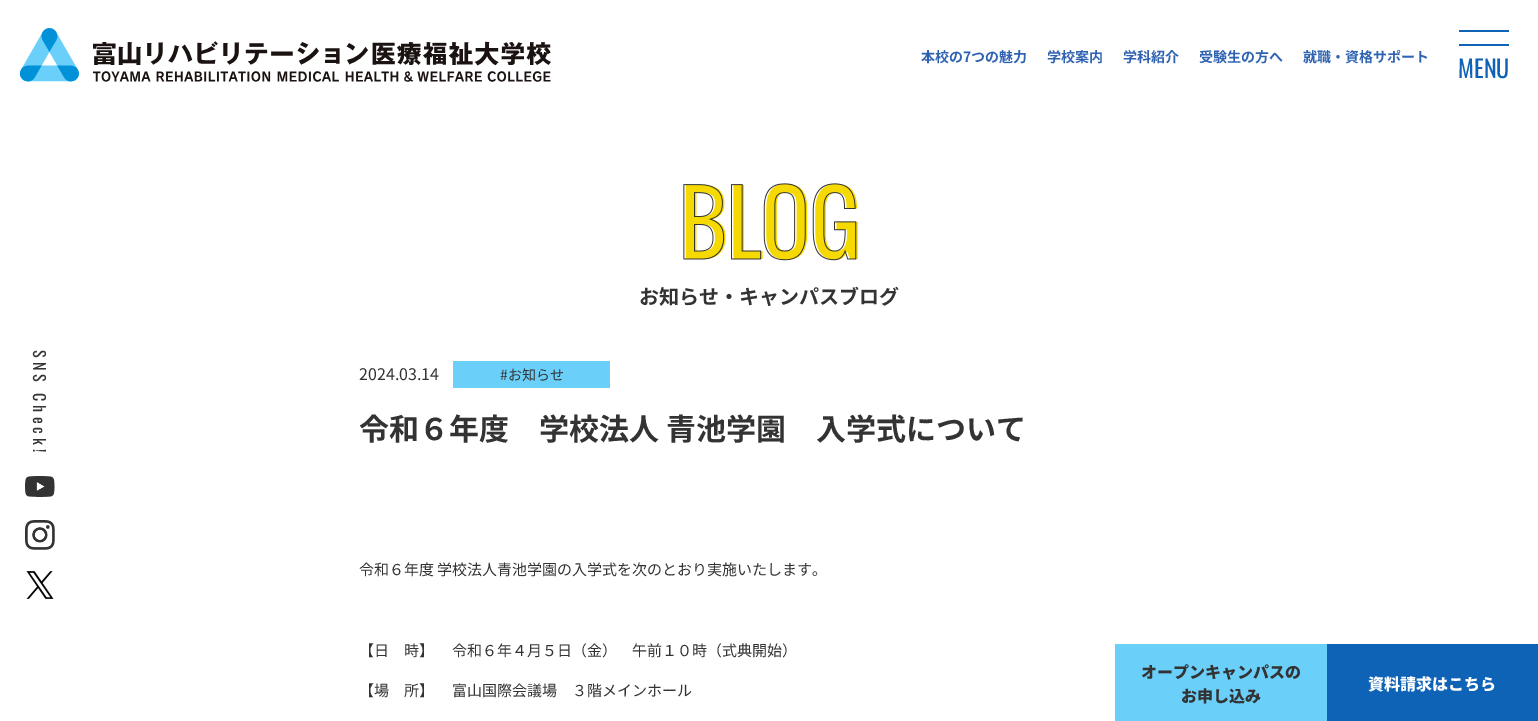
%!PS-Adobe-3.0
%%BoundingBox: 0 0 1538 721
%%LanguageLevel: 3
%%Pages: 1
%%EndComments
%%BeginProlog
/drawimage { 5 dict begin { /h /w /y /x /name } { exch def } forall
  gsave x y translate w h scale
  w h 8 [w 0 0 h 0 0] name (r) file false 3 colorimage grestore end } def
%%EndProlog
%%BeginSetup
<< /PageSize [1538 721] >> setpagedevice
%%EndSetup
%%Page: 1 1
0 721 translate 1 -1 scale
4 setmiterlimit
1 setgray
0 0 1538 721 rectfill
(images/1.raw) 20 28 531 54 drawimage
0.055 0.388 0.718 setrgbcolor
1459 30 50 2 rectfill
1459 44 50 2 rectfill
(images/2.raw) 25 476 30 21 drawimage
(images/3.raw) 25 520 30 30 drawimage
(images/4.raw) 26 571 28 28 drawimage
(images/5.raw) 683 183 175 78 drawimage
0.416 0.816 0.98 setrgbcolor
453 361 157 27 rectfill
1115 644 212 77 rectfill
0.055 0.388 0.718 setrgbcolor
1327 644 211 77 rectfill
/NotoSansJP-Bold [14 0 0 -14 0 0] selectfont
0.184 0.388 0.694 setrgbcolor
921 62 moveto (本校の7つの魅力) show
1047 62 moveto (学校案内) show
1123 62 moveto (学科紹介) show
1199 62 moveto (受験生の方へ) show
1303 62 moveto (就職・資格サポート) show
/Oswald-Regular [24 0 0 -24 0 0] selectfont
0.055 0.388 0.718 setrgbcolor
1458 78 moveto (MENU) show
/Oswald-Regular [16 0 0 -16 0 0] selectfont
0.2 setgray
gsave 33 350 translate 90 rotate 0 0 moveto 4 0 (SNS Check!) ashow grestore
/NotoSansJP-Bold [20 0 0 -20 0 0] selectfont
639 304 moveto (お知らせ・キャンパスブログ) show
/NotoSansJP-Regular [16 0 0 -16 0 0] selectfont
359 380 moveto (2024.03.14) show
/NotoSansJP-Regular [14 0 0 -14 0 0] selectfont
500 380 moveto (#お知らせ) show
/NotoSansJP-Bold [30 0 0 -30 0 0] selectfont
359 440 moveto (令和６年度　学校法人 青池学園　入学式について) show
/NotoSansJP-Regular [15 0 0 -15 0 0] selectfont
359 575 moveto (令和６年度 学校法人青池学園の入学式を次のとおり実施いたします。) show
359 656 moveto (【日　時】　 令和６年４月５日（金）　午前１０時（式典開始）) show
359 696 moveto (【場　所】 　富山国際会議場　３階メインホール) show
/NotoSansJP-Black [16 0 0 -16 0 0] selectfont
1141 678 moveto (オープンキャンパスの) show
1181 702 moveto (お申し込み) show
1 setgray
1368 690 moveto (資料請求はこちら) show
showpage
%%EOF
